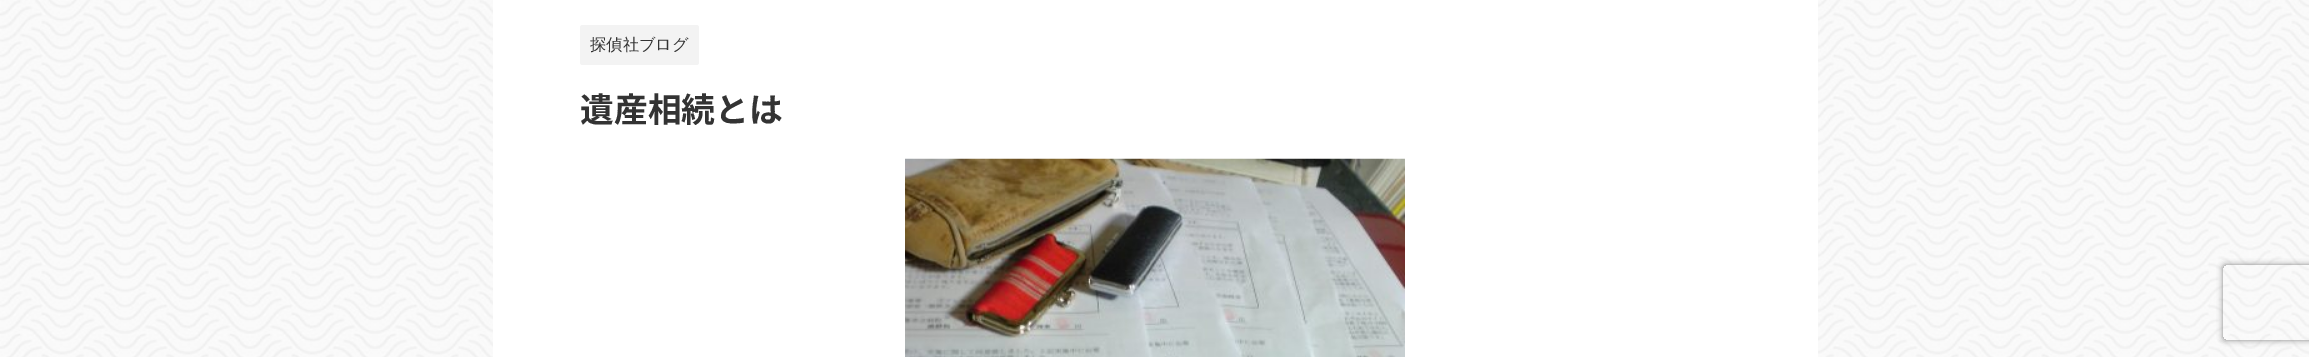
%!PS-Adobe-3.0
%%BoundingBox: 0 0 2309 357
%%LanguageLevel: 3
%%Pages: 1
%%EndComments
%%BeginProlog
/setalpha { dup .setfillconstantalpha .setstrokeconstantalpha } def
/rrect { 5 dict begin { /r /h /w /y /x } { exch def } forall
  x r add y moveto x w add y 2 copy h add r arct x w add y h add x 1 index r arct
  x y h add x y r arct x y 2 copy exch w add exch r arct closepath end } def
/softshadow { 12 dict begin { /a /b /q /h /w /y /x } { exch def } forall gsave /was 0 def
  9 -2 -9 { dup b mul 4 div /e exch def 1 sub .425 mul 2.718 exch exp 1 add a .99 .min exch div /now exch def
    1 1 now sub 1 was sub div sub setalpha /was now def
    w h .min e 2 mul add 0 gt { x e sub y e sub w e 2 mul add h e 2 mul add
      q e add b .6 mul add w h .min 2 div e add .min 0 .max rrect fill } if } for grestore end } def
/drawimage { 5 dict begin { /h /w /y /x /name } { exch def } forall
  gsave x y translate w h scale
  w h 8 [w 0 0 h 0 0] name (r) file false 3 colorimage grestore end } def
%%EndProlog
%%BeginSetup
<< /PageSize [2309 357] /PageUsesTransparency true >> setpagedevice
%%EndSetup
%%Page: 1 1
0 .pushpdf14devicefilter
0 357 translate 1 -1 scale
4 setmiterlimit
1 setgray
0 0 2309 357 rectfill
(images/1.raw) 0 0 2309 357 drawimage
493 0 1325 357 rectfill
0.953 setgray
580 25 119 40 2.5 rrect fill
(images/2.raw) 905 158 500 199 drawimage
gsave
newpath 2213 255 moveto 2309 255 lineto 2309 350 lineto 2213 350 lineto closepath 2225.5 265 moveto 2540.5 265 lineto 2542 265 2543 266 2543 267.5 curveto 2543 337.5 lineto 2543 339 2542 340 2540.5 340 curveto 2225.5 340 lineto 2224 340 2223 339 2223 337.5 curveto 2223 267.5 lineto 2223 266 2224 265 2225.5 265 curveto closepath eoclip newpath
0.502 setgray
2223 265 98 75 2.5 3 1 softshadow
grestore
/WenQuanYiZenHei-Medium [16.25 0 0 -16.25 0 0] selectfont
0.2 setgray
590 50 moveto (探偵社ブログ) show
/NotoSansJP-Bold [33.75 0 0 -33.75 0 0] selectfont
580 122 moveto (遺産相続とは) show
.poppdf14devicefilter showpage
%%EOF
